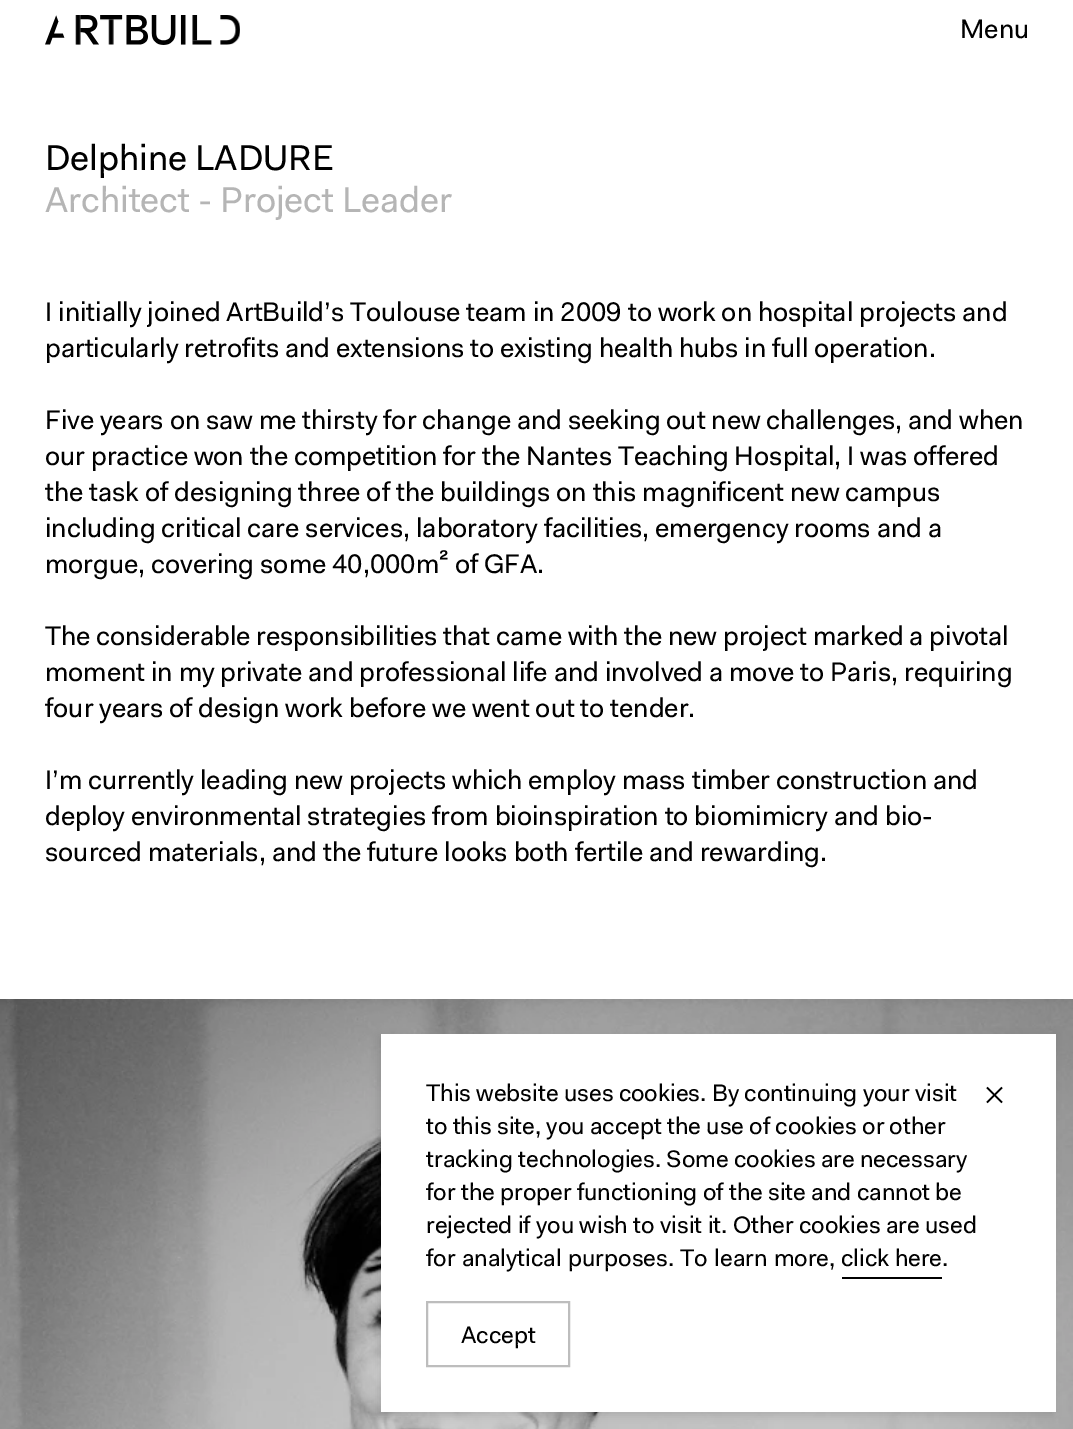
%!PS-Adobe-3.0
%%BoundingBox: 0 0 1073 1429
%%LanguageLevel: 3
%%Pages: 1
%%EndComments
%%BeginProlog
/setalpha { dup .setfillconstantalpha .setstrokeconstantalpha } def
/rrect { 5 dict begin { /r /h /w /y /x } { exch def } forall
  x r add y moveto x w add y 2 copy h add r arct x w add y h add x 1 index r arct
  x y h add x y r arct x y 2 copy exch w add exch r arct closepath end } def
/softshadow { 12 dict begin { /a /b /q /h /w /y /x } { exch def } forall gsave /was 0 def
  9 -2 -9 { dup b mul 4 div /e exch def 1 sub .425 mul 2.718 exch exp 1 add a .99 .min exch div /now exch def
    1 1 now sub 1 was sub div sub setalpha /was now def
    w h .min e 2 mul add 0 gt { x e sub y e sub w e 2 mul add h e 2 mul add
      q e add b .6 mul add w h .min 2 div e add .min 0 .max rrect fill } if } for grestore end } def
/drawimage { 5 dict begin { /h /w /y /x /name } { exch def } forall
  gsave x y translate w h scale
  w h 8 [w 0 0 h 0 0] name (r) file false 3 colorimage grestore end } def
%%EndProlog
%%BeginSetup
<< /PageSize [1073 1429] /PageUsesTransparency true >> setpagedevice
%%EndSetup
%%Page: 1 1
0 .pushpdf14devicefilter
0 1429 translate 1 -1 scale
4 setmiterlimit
1 setgray
0 0 1073 1429 rectfill
(images/1.raw) 45 15 195 30 drawimage
(images/2.raw) 0 999 1073 430 drawimage
0 setgray
378 1037 675 378 0 4 0.1 softshadow
1 setgray
381 1034 675 378 rectfill
0 setgray
842 1277 100 2 rectfill
1.5 setlinewidth
newpath 987 1102.5 moveto 1002 1087.5 lineto 987 1087.5 moveto 1002 1102.5 lineto stroke
0.741 setgray
2 setlinewidth
427 1302 142 64 rectstroke
/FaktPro-Regular [27 0 0 -27 0 0] selectfont
0 setgray
960 38 moveto (Menu) show
/FaktPro-Regular [36 0 0 -36 0 0] selectfont
45 170 moveto (Delphine LADURE) show
0.71 setgray
45 212 moveto (Architect - Project Leader) show
/FaktPro-Regular [27 0 0 -27 0 0] selectfont
0 setgray
45 321 moveto (I initially joined ArtBuild’s Toulouse team in 2009 to work on hospital projects and) show
45 357 moveto (particularly retrofits and extensions to existing health hubs in full operation.) show
45 429 moveto (Five years on saw me thirsty for change and seeking out new challenges, and when) show
45 465 moveto (our practice won the competition for the Nantes Teaching Hospital, I was offered) show
45 501 moveto (the task of designing three of the buildings on this magnificent new campus) show
45 537 moveto (including critical care services, laboratory facilities, emergency rooms and a) show
45 573 moveto (morgue, covering some 40,000m² of GFA.) show
45 645 moveto (The considerable responsibilities that came with the new project marked a pivotal) show
45 681 moveto (moment in my private and professional life and involved a move to Paris, requiring) show
45 717 moveto (four years of design work before we went out to tender.) show
45 789 moveto (I’m currently leading new projects which employ mass timber construction and) show
45 825 moveto (deploy environmental strategies from bioinspiration to biomimicry and bio-) show
45 861 moveto (sourced materials, and the future looks both fertile and rewarding.) show
/FaktPro-Regular [24 0 0 -24 0 0] selectfont
426 1101 moveto (This website uses cookies. By continuing your visit) show
426 1134 moveto (to this site, you accept the use of cookies or other) show
426 1167 moveto (tracking technologies. Some cookies are necessary) show
426 1200 moveto (for the proper functioning of the site and cannot be) show
426 1233 moveto (rejected if you wish to visit it. Other cookies are used) show
426 1266 moveto 1 0 32 (for analytical purposes. To learn more,) widthshow
841 1266 moveto (click here.) show
461 1343 moveto (Accept) show
.poppdf14devicefilter showpage
%%EOF
